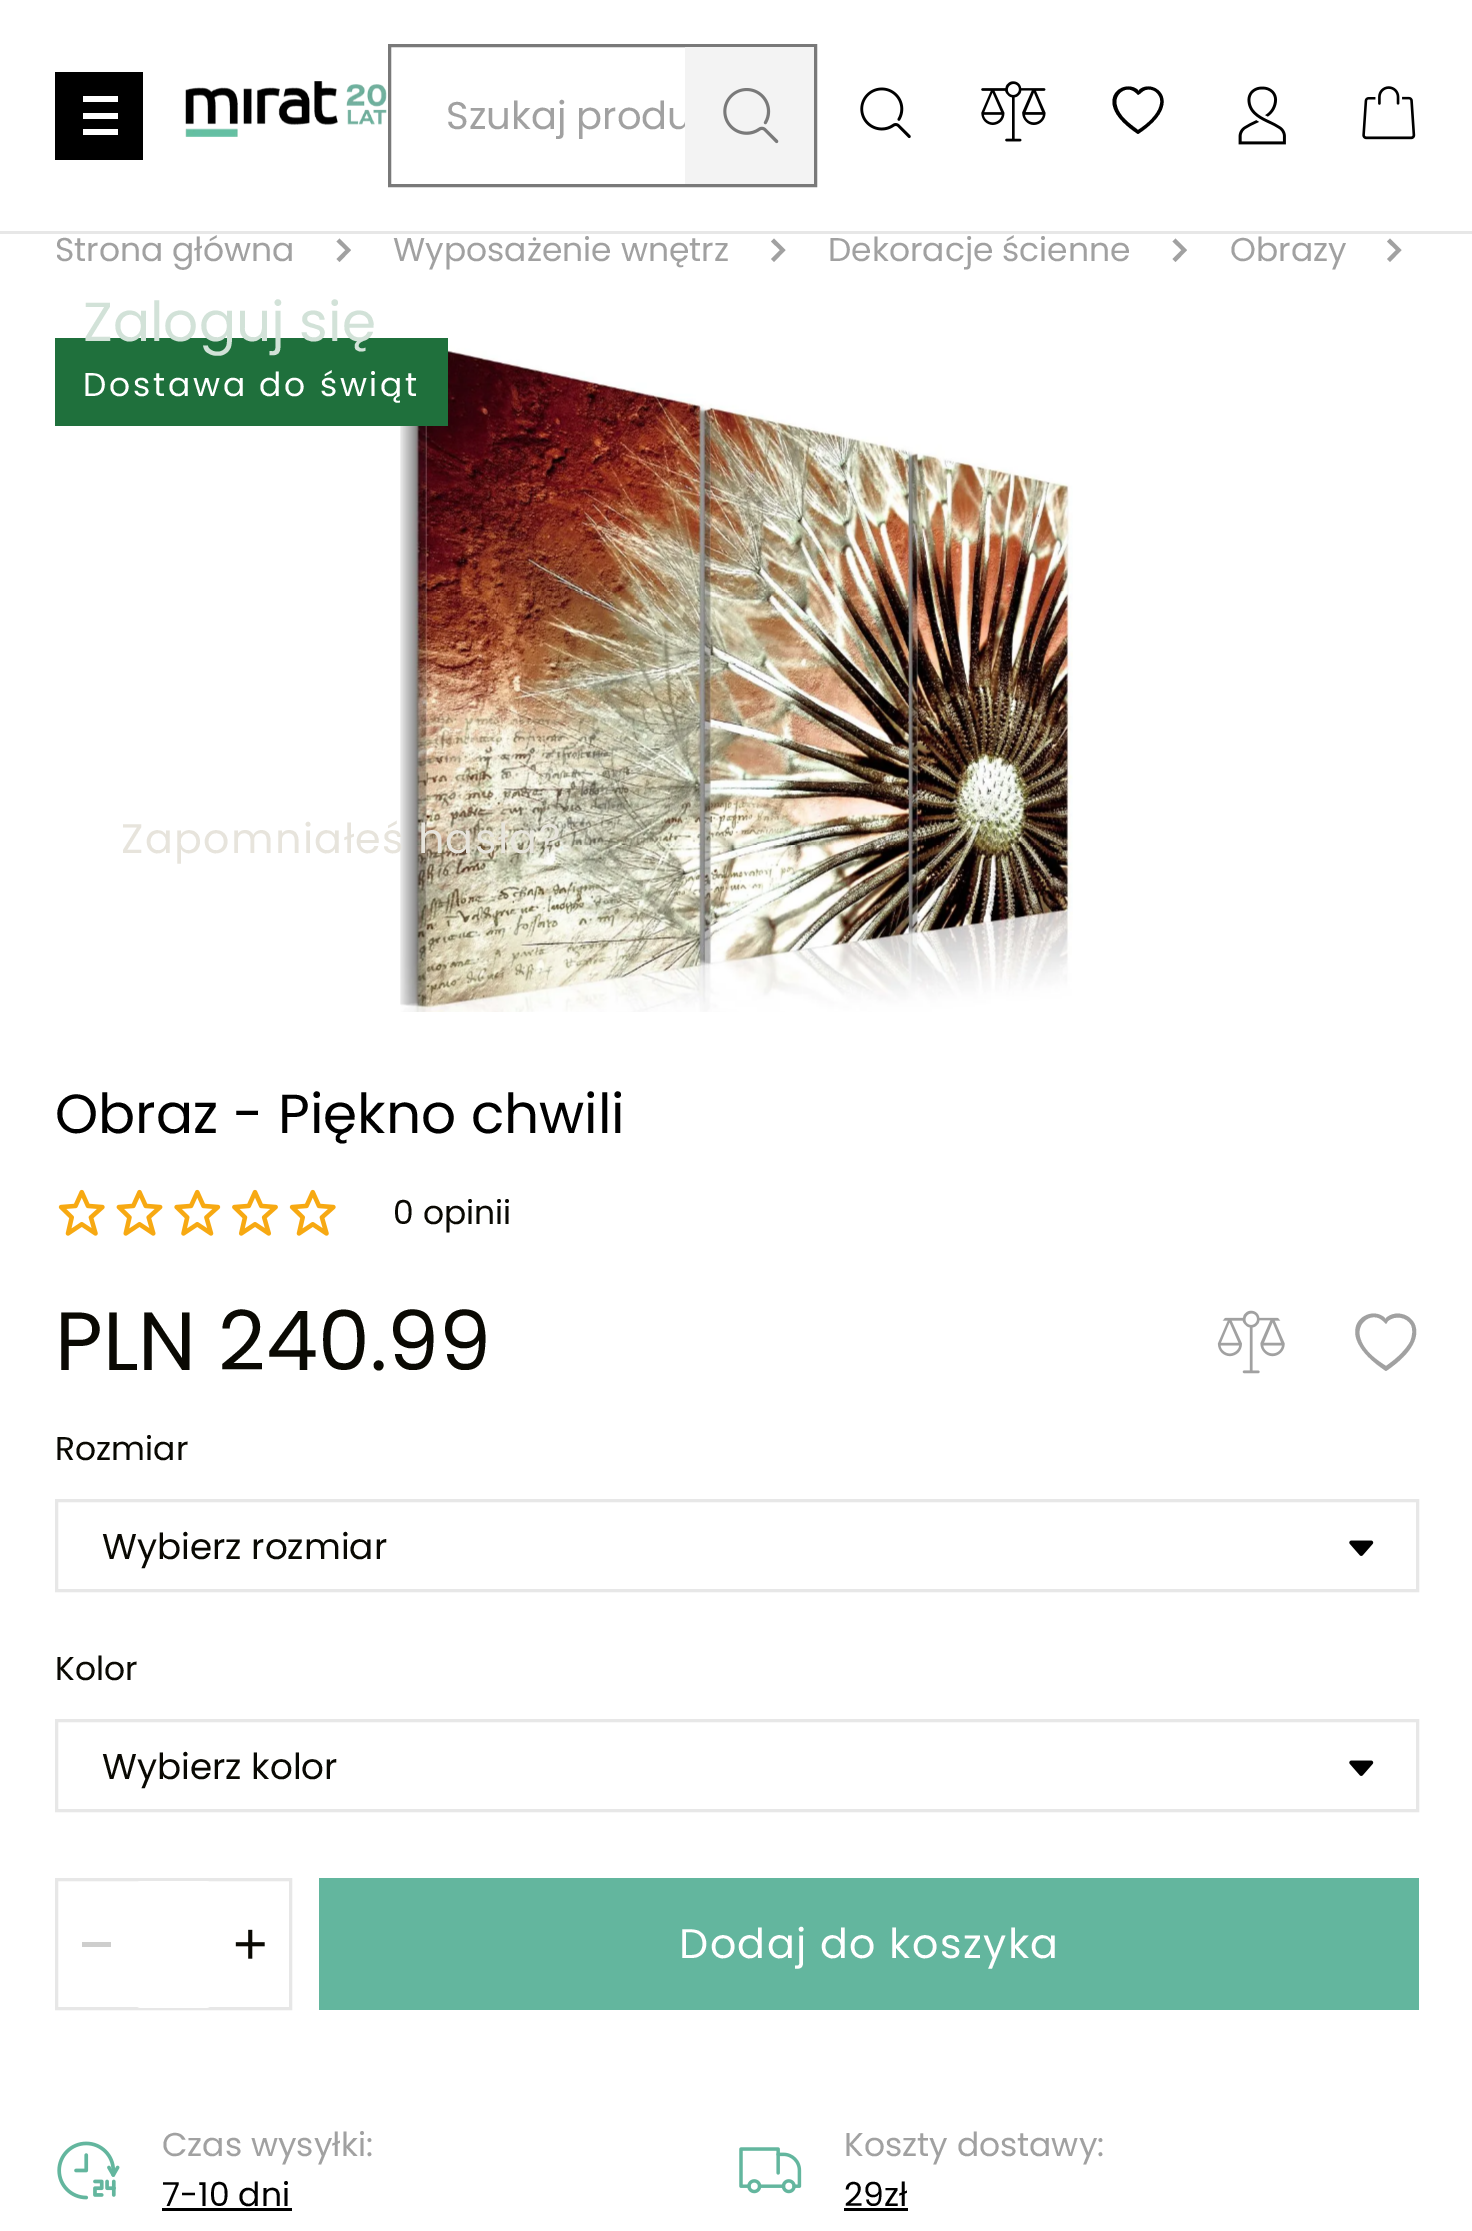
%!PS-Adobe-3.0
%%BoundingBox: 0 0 1472 2231
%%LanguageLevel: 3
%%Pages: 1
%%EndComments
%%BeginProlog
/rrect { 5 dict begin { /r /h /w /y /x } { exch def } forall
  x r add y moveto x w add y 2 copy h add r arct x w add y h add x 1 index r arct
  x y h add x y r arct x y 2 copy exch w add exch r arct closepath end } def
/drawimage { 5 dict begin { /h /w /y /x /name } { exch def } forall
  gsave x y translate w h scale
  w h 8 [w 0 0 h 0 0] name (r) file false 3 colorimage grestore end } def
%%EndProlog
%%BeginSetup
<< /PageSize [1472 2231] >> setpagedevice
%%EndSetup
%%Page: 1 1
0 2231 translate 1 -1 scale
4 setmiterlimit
1 setgray
0 0 1472 2231 rectfill
0.906 setgray
0 231 1472 3 rectfill
0 setgray
55 72 88 88 rectfill
1 setgray
83 96 35 6 rectfill
83 113 35 6 rectfill
83 129 35 6 rectfill
(images/1.raw) 185 81 202 56 drawimage
0.475 setgray
3 setlinewidth
389.5 45.5 426 140 rectstroke
(images/3.raw) 860 87 51 52 drawimage
(images/4.raw) 981 81 65 61 drawimage
0 setgray
newpath 1138 90 moveto 1123 77 1089 102 1138 134 curveto 1187 102 1153 77 1139 90 curveto 1138 91 lineto closepath 1136 93 moveto 1138 95 lineto 1141 93 lineto 1146 87 1156 89 1159 96 curveto 1161 99 1161 104 1158 110 curveto 1155 116 1149 123 1138 130 curveto 1130 124 1119 116 1117 106 curveto 1113 94 1127 84 1136 93 curveto closepath eofill
(images/5.raw) 1362 86 54 54 drawimage
(images/6.raw) 1238 86 48 59 drawimage
0.631 setgray
newpath 339.5 262 moveto 351 250 lineto 339.5 238.5 lineto 336.5 241.5 lineto 345.5 250 lineto 336.5 259 lineto closepath fill
newpath 774 262 moveto 785.5 250 lineto 774 238.5 lineto 771 241.5 lineto 780 250 lineto 771 259 lineto closepath fill
newpath 1175.5 262 moveto 1187 250 lineto 1175.5 238.5 lineto 1172.5 241.5 lineto 1181.5 250 lineto 1172.5 259 lineto closepath fill
newpath 1390 262 moveto 1401.5 250 lineto 1390 238.5 lineto 1387 241.5 lineto 1396 250 lineto 1387 259 lineto closepath fill
(images/7.raw) 400 345 673 667 drawimage
0.122 0.439 0.235 setrgbcolor
55 338 393 88 rectfill
(images/8.raw) 58 1189 47 47 drawimage
(images/9.raw) 116 1189 47 47 drawimage
(images/10.raw) 174 1189 47 47 drawimage
(images/11.raw) 232 1189 46 47 drawimage
(images/8.raw) 289 1189 47 47 drawimage
0.906 setgray
56.5 1500.5 1361 90 rectstroke
(images/12.raw) 1349 1540 25 16 drawimage
56.5 1720.5 1361 90 rectstroke
(images/12.raw) 1349 1760 25 16 drawimage
(images/13.raw) 1217 1310 68 64 drawimage
0.631 setgray
newpath 1385 1318 moveto 1368 1302 1327 1332 1386 1371 curveto 1444 1332 1404 1302 1386 1318 curveto 1386 1319 lineto closepath 1383 1321 moveto 1386 1324 lineto 1388 1321 lineto 1395 1315 1407 1317 1411 1325 curveto 1413 1329 1413 1335 1410 1342 curveto 1406 1349 1399 1357 1386 1366 curveto 1375 1359 1363 1350 1360 1337 curveto 1356 1322 1373 1311 1383 1321 curveto closepath eofill
0.906 setgray
56.5 1879.5 234 129 rectstroke
0.808 0.808 0.804 setrgbcolor
82 1942 29 5 rectfill
1 setgray
135 1881 77 127 6 rrect fill
(images/14.raw) 235 1929 30 30 drawimage
0.388 0.714 0.62 setrgbcolor
319 1878 1100 132 rectfill
(images/15.raw) 57 2141 63 59 drawimage
0 setgray
162 2208 130 3 rectfill
(images/16.raw) 739 2147 63 47 drawimage
844 2208 64 3 rectfill
/Poppins-Regular [38.5 0 0 -38.5 0 0] selectfont
0.631 setgray
446 129 moveto (Szukaj produ) show
0.953 setgray
685 47 129 137 rectfill
(images/2.raw) 723 88 56 56 drawimage
/Poppins-Regular [55 0 0 -55 0 0] selectfont
0.824 0.886 0.847 setrgbcolor
83 341 moveto (Zaloguj się) show
/Poppins-Regular [41.25 0 0 -41.25 0 0] selectfont
0.906 0.894 0.863 setrgbcolor
121 853 moveto 1.4 0 (Zapomniałeś hasła?) ashow
/Poppins-Regular [33 0 0 -33 0 0] selectfont
0.631 setgray
55 261 moveto (Strona główna) show
393 261 moveto (Wyposażenie wnętrz) show
828 261 moveto (Dekoracje ścienne) show
1230 261 moveto (Obrazy) show
1 setgray
83 396 moveto 2.75 0 (Dostawa do świąt) ashow
/Poppins-Regular [55 0 0 -55 0 0] selectfont
0 setgray
55 1133 moveto (Obraz - Piękno chwili) show
/Poppins-Regular [33 0 0 -33 0 0] selectfont
0.039 0.035 0.012 setrgbcolor
393 1224 moveto (0 opinii) show
/Poppins-Regular [82.5 0 0 -82.5 0 0] selectfont
55 1370 moveto (PLN 240.99) show
/Poppins-Regular [33 0 0 -33 0 0] selectfont
55 1460 moveto (Rozmiar) show
/Poppins-Regular [35.75 0 0 -35.75 0 0] selectfont
102 1559 moveto (Wybierz rozmiar) show
/Poppins-Regular [33 0 0 -33 0 0] selectfont
55 1680 moveto (Kolor) show
/Poppins-Regular [35.75 0 0 -35.75 0 0] selectfont
102 1779 moveto (Wybierz kolor) show
/Poppins-Regular [41.25 0 0 -41.25 0 0] selectfont
1 setgray
679 1958 moveto 1.4 0 (Dodaj do koszyka) ashow
/Poppins-Regular [33 0 0 -33 0 0] selectfont
0.631 setgray
162 2156 moveto (Czas wysyłki:) show
0 setgray
162 2206 moveto (7-10 dni) show
0.631 setgray
844 2156 moveto (Koszty dostawy:) show
0 setgray
844 2206 moveto (29zł) show
showpage
%%EOF
